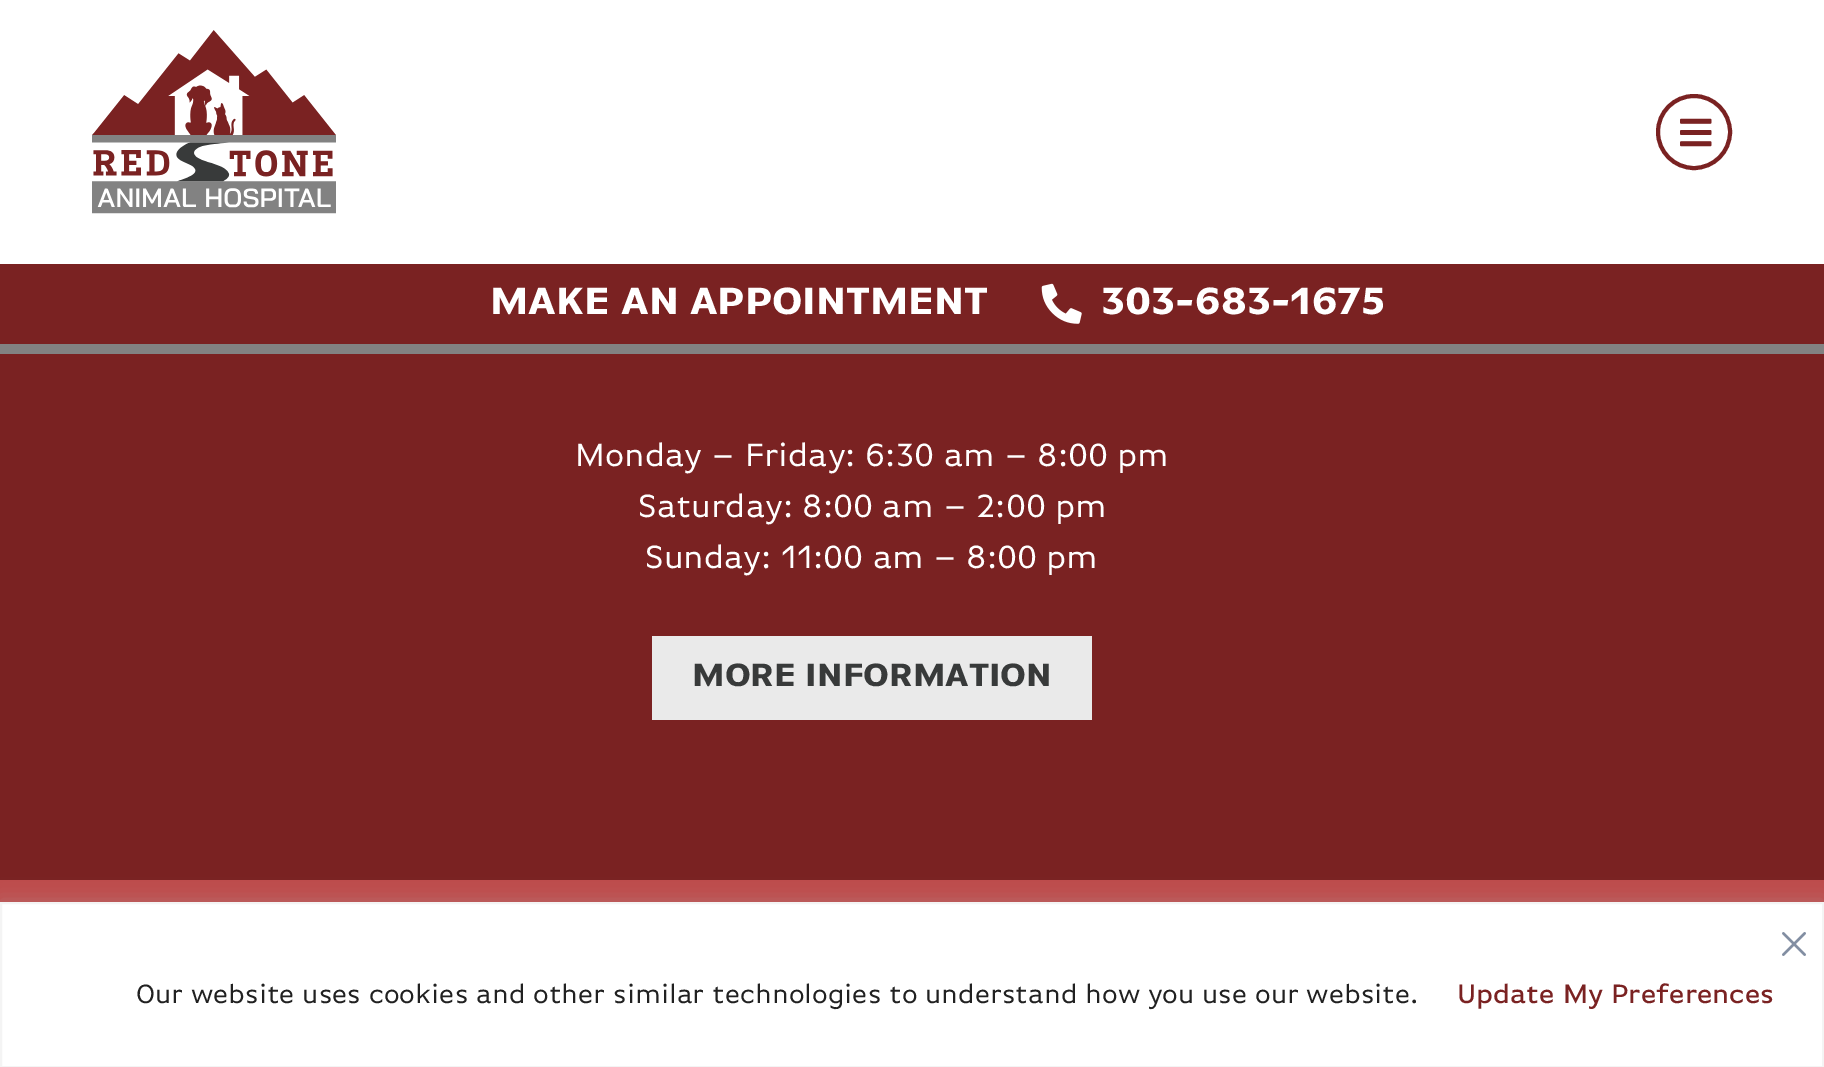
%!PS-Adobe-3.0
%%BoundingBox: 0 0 1824 1067
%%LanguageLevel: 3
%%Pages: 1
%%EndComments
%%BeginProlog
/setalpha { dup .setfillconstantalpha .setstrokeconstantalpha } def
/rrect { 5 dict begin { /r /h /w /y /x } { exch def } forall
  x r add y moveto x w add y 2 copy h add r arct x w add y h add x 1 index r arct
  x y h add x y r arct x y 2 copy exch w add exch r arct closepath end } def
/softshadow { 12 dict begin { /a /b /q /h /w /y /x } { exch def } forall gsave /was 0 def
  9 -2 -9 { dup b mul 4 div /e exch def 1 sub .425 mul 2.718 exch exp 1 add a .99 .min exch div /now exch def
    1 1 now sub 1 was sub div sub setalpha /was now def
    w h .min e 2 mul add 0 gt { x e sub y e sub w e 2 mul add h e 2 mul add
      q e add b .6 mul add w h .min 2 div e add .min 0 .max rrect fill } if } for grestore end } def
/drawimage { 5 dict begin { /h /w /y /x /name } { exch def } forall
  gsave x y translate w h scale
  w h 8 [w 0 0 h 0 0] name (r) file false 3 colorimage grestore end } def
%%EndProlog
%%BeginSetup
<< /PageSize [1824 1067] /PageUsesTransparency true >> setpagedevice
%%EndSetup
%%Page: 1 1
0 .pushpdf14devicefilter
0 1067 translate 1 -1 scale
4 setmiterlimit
0.478 0.133 0.133 setrgbcolor
0 0 1824 1067 rectfill
1 setgray
0 0 1824 264 rectfill
0.51 setgray
0 344 1824 10 rectfill
(images/1.raw) 92 30 244 184 drawimage
0.478 0.133 0.133 setrgbcolor
4 setlinewidth
newpath 1694 132 36 0 360 arc closepath stroke
(images/2.raw) 1680 118 32 29 drawimage
(images/3.raw) 1041 283 41 41 drawimage
0.918 setgray
652 636 440 84 rectfill
0.741 0.294 0.294 setrgbcolor
0 880 1824 22 rectfill
0.675 0.671 0.671 setrgbcolor
0 900 1824 166 0 10 0.3 softshadow
1 setgray
newpath 1 903 moveto 1823 903 lineto 1823 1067 lineto 1 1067 lineto closepath gsave fill grestore
0.957 setgray
2 setlinewidth
stroke
(images/4.raw) 1782 932 24 24 drawimage
/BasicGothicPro-Bold [40 0 0 -40 0 0] selectfont
1 setgray
490 314 moveto (MAKE AN APPOINTMENT) show
1101 314 moveto (303-683-1675) show
/BasicGothicPro-Regular [34 0 0 -34 0 0] selectfont
575 466 moveto (Monday – Friday: 6:30 am – 8:00 pm) show
638 517 moveto (Saturday: 8:00 am – 2:00 pm) show
645 568 moveto (Sunday: 11:00 am – 8:00 pm) show
/BasicGothicPro-Bold [34 0 0 -34 0 0] selectfont
0.22 0.227 0.227 setrgbcolor
692 686 moveto (MORE INFORMATION) show
/BasicGothicPro-Regular [28 0 0 -28 0 0] selectfont
0.129 setgray
136 1003 moveto (Our website uses cookies and other similar technologies to understand how you use our website.) show
/BasicGothicPro-Medium [28 0 0 -28 0 0] selectfont
0.478 0.133 0.133 setrgbcolor
1457 1003 moveto (Update My Preferences) show
.poppdf14devicefilter showpage
%%EOF
